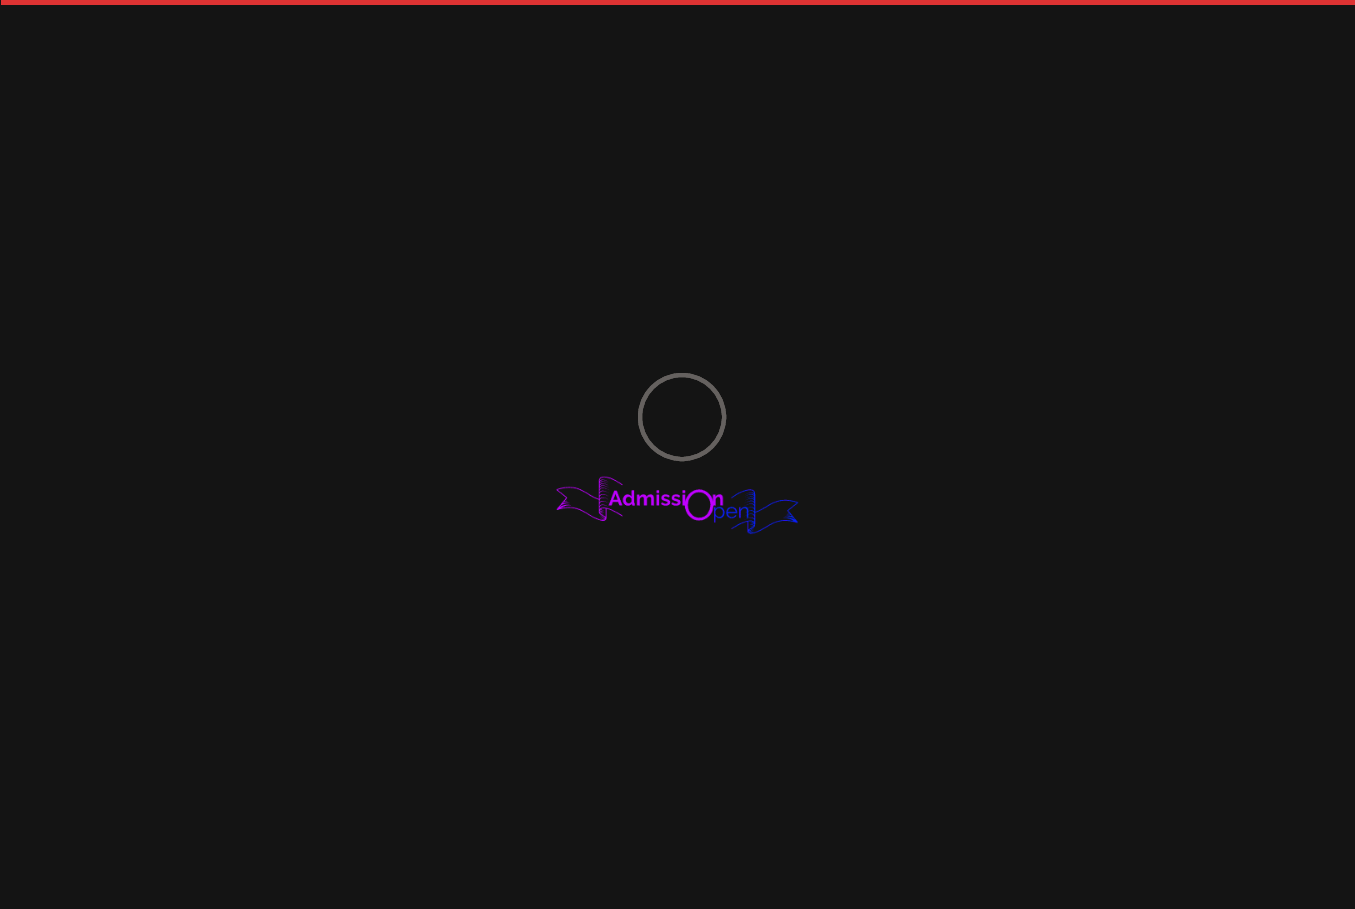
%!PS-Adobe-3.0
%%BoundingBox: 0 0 1355 909
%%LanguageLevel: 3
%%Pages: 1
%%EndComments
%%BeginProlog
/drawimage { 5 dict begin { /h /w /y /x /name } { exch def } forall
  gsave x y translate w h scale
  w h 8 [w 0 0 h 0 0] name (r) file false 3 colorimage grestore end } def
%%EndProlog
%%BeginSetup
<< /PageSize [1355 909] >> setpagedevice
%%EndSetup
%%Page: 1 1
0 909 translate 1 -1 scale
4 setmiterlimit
0.078 setgray
0 0 1355 909 rectfill
0.867 0.2 0.2 setrgbcolor
1 0 1354 5 rectfill
0.396 0.38 0.373 setrgbcolor
4 setlinewidth
newpath 682 417 42 0 360 arc closepath stroke
newpath 682 417 42 0 360 arc closepath stroke
(images/1.raw) 556 476 243 59 drawimage
showpage
%%EOF
